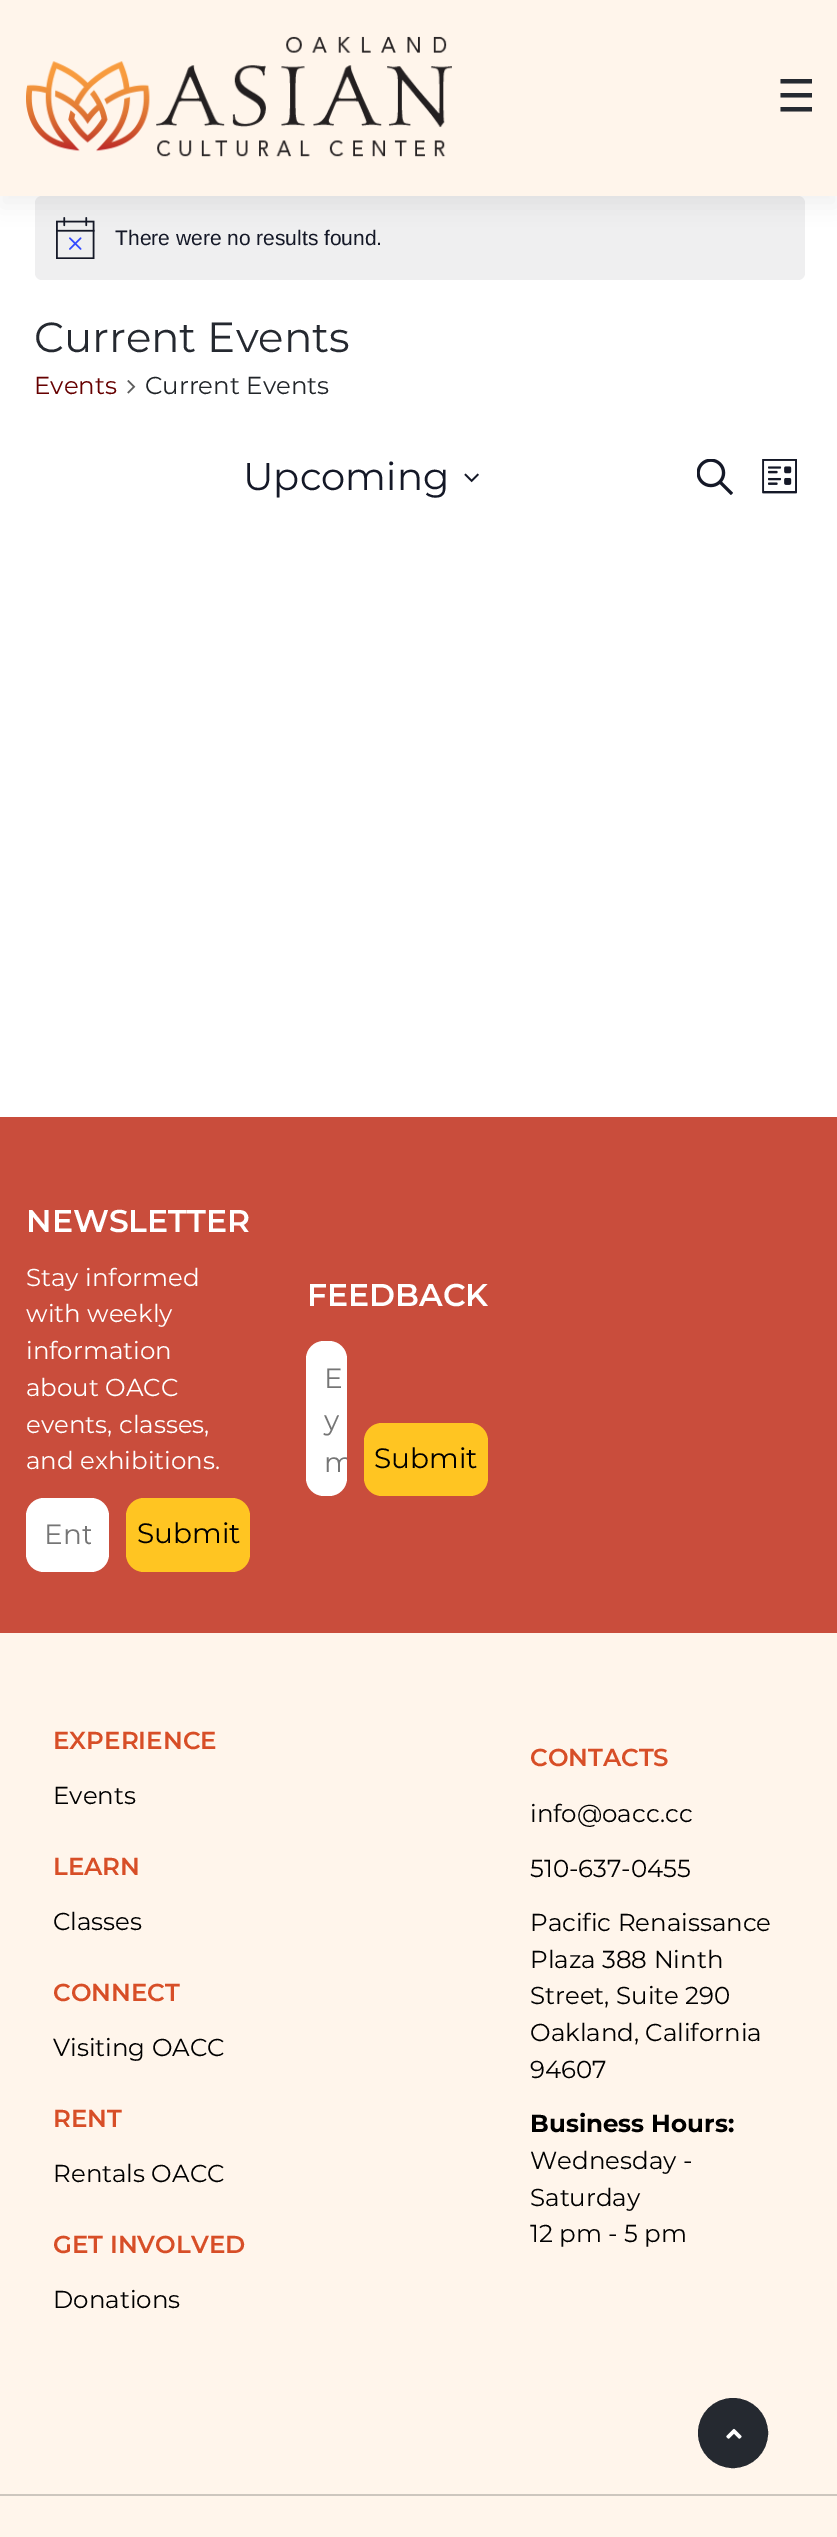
%!PS-Adobe-3.0
%%BoundingBox: 0 0 837 2537
%%LanguageLevel: 3
%%Pages: 1
%%EndComments
%%BeginProlog
/setalpha { dup .setfillconstantalpha .setstrokeconstantalpha } def
/rrect { 5 dict begin { /r /h /w /y /x } { exch def } forall
  x r add y moveto x w add y 2 copy h add r arct x w add y h add x 1 index r arct
  x y h add x y r arct x y 2 copy exch w add exch r arct closepath end } def
/softshadow { 12 dict begin { /a /b /q /h /w /y /x } { exch def } forall gsave /was 0 def
  9 -2 -9 { dup b mul 4 div /e exch def 1 sub .425 mul 2.718 exch exp 1 add a .99 .min exch div /now exch def
    1 1 now sub 1 was sub div sub setalpha /was now def
    w h .min e 2 mul add 0 gt { x e sub y e sub w e 2 mul add h e 2 mul add
      q e add b .6 mul add w h .min 2 div e add .min 0 .max rrect fill } if } for grestore end } def
/drawimage { 5 dict begin { /h /w /y /x /name } { exch def } forall
  gsave x y translate w h scale
  w h 8 [w 0 0 h 0 0] name (r) file false 3 colorimage grestore end } def
%%EndProlog
%%BeginSetup
<< /PageSize [837 2537] /PageUsesTransparency true >> setpagedevice
%%EndSetup
%%Page: 1 1
0 .pushpdf14devicefilter
0 2537 translate 1 -1 scale
4 setmiterlimit
1 setgray
0 0 837 2537 rectfill
0.937 0.937 0.941 setrgbcolor
35 196 770 84 7 rrect fill
(images/2.raw) 56 217 39 42 drawimage
0 setgray
0 11 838 196 0 11.5 0.06 softshadow
1 0.961 0.922 setrgbcolor
0 0 837 196 rectfill
(images/1.raw) 26 36 426 121 drawimage
0.145 0.161 0.188 setrgbcolor
newpath 780.5 79 moveto 812 79 lineto 812 83.5 lineto 780.5 83.5 lineto closepath 780.5 93 moveto 812 93 lineto 812 97.5 lineto 780.5 97.5 lineto closepath 780.5 107 moveto 812 107 lineto 812 111.5 lineto 780.5 111.5 lineto closepath fill
(images/3.raw) 127 380 9 14 drawimage
(images/4.raw) 464 473 15 10 drawimage
(images/5.raw) 697 459 36 36 drawimage
(images/6.raw) 762 459 35 35 drawimage
1 0.961 0.922 setrgbcolor
0 1633 837 904 rectfill
0.788 0.302 0.235 setrgbcolor
0 1117 837 516 rectfill
1 setgray
26 1498 83 74 18 rrect fill
1 0.773 0.133 setrgbcolor
126 1498 124 74 18 rrect fill
1 setgray
306 1341 41 155 18 rrect fill
1 0.773 0.133 setrgbcolor
364 1423 124 73 18 rrect fill
0.804 0.776 0.745 setrgbcolor
0 2494 837 2 rectfill
0.145 0.161 0.188 setrgbcolor
newpath 733 2433 34 0 360 arc closepath gsave fill grestore
2 setlinewidth
stroke
(images/7.raw) 726 2428 16 11 drawimage
/LiberationSans-Regular [21 0 0 -21 0 0] selectfont
0.078 0.094 0.153 setrgbcolor
115 245 moveto (There were no results found.) show
/Montserrat-Regular [42 0 0 -42 0 0] selectfont
0.145 0.161 0.188 setrgbcolor
34 352 moveto (Current Events) show
/Montserrat-Regular [24.5 0 0 -24.5 0 0] selectfont
0.4 0 0 setrgbcolor
34 394 moveto (Events) show
0.129 0.145 0.161 setrgbcolor
145 394 moveto (Current Events) show
/Montserrat-Regular [38.5 0 0 -38.5 0 0] selectfont
0.078 0.094 0.153 setrgbcolor
243 490 moveto (Upcoming) show
/Montserrat-SemiBold [31.5 0 0 -31.5 0 0] selectfont
1 setgray
26 1232 moveto (NEWSLETTER) show
/Montserrat-Regular [24.5 0 0 -24.5 0 0] selectfont
26 1286 moveto (Stay informed) show
26 1322 moveto (with weekly) show
26 1359 moveto (information) show
26 1396 moveto (about OACC) show
26 1433 moveto (events, classes,) show
26 1469 moveto (and exhibitions.) show
gsave
44 1517 47 34 rectclip
/Montserrat-Regular [28 0 0 -28 0 0] selectfont
0.459 setgray
44 1544 moveto (Ent) show
grestore
/Montserrat-Regular [28 0 0 -28 0 0] selectfont
0 setgray
137 1543 moveto (Submit) show
/Montserrat-SemiBold [31.5 0 0 -31.5 0 0] selectfont
1 setgray
307 1306 moveto (FEEDBACK) show
/Montserrat-Regular [28 0 0 -28 0 0] selectfont
0.459 setgray
324 1388 moveto (E) show
324 1430 moveto (y) show
gsave
306 1341 41 155 18 rrect clip newpath
324 1472 moveto (m) show
grestore
0 setgray
374 1468 moveto (Submit) show
/Montserrat-SemiBold [24.5 0 0 -24.5 0 0] selectfont
0.843 0.306 0.153 setrgbcolor
53 1749 moveto (EXPERIENCE) show
/Montserrat-Regular [24.5 0 0 -24.5 0 0] selectfont
0 setgray
53 1804 moveto (Events) show
/Montserrat-SemiBold [24.5 0 0 -24.5 0 0] selectfont
0.843 0.306 0.153 setrgbcolor
53 1875 moveto (LEARN) show
/Montserrat-Regular [24.5 0 0 -24.5 0 0] selectfont
0 setgray
53 1930 moveto (Classes) show
/Montserrat-SemiBold [24.5 0 0 -24.5 0 0] selectfont
0.843 0.306 0.153 setrgbcolor
53 2001 moveto (CONNECT) show
/Montserrat-Regular [24.5 0 0 -24.5 0 0] selectfont
0 setgray
53 2056 moveto (Visiting OACC) show
/Montserrat-SemiBold [24.5 0 0 -24.5 0 0] selectfont
0.843 0.306 0.153 setrgbcolor
53 2127 moveto (RENT) show
/Montserrat-Regular [24.5 0 0 -24.5 0 0] selectfont
0 setgray
53 2182 moveto (Rentals OACC) show
/Montserrat-SemiBold [24.5 0 0 -24.5 0 0] selectfont
0.843 0.306 0.153 setrgbcolor
53 2253 moveto (GET INVOLVED) show
/Montserrat-Regular [24.5 0 0 -24.5 0 0] selectfont
0 setgray
53 2308 moveto (Donations) show
/Montserrat-SemiBold [24.5 0 0 -24.5 0 0] selectfont
0.843 0.306 0.153 setrgbcolor
530 1766 moveto (CONTACTS) show
/Montserrat-Regular [24.5 0 0 -24.5 0 0] selectfont
0 setgray
530 1822 moveto (info@oacc.cc) show
530 1877 moveto (510-637-0455) show
530 1931 moveto (Pacific Renaissance) show
530 1968 moveto (Plaza 388 Ninth) show
530 2004 moveto (Street, Suite 290) show
530 2041 moveto (Oakland, California) show
530 2078 moveto (94607) show
/Montserrat-Bold [24.5 0 0 -24.5 0 0] selectfont
530 2132 moveto (Business Hours:) show
/Montserrat-Regular [24.5 0 0 -24.5 0 0] selectfont
530 2169 moveto (Wednesday -) show
530 2206 moveto (Saturday) show
530 2242 moveto (12 pm - 5 pm) show
.poppdf14devicefilter showpage
%%EOF
